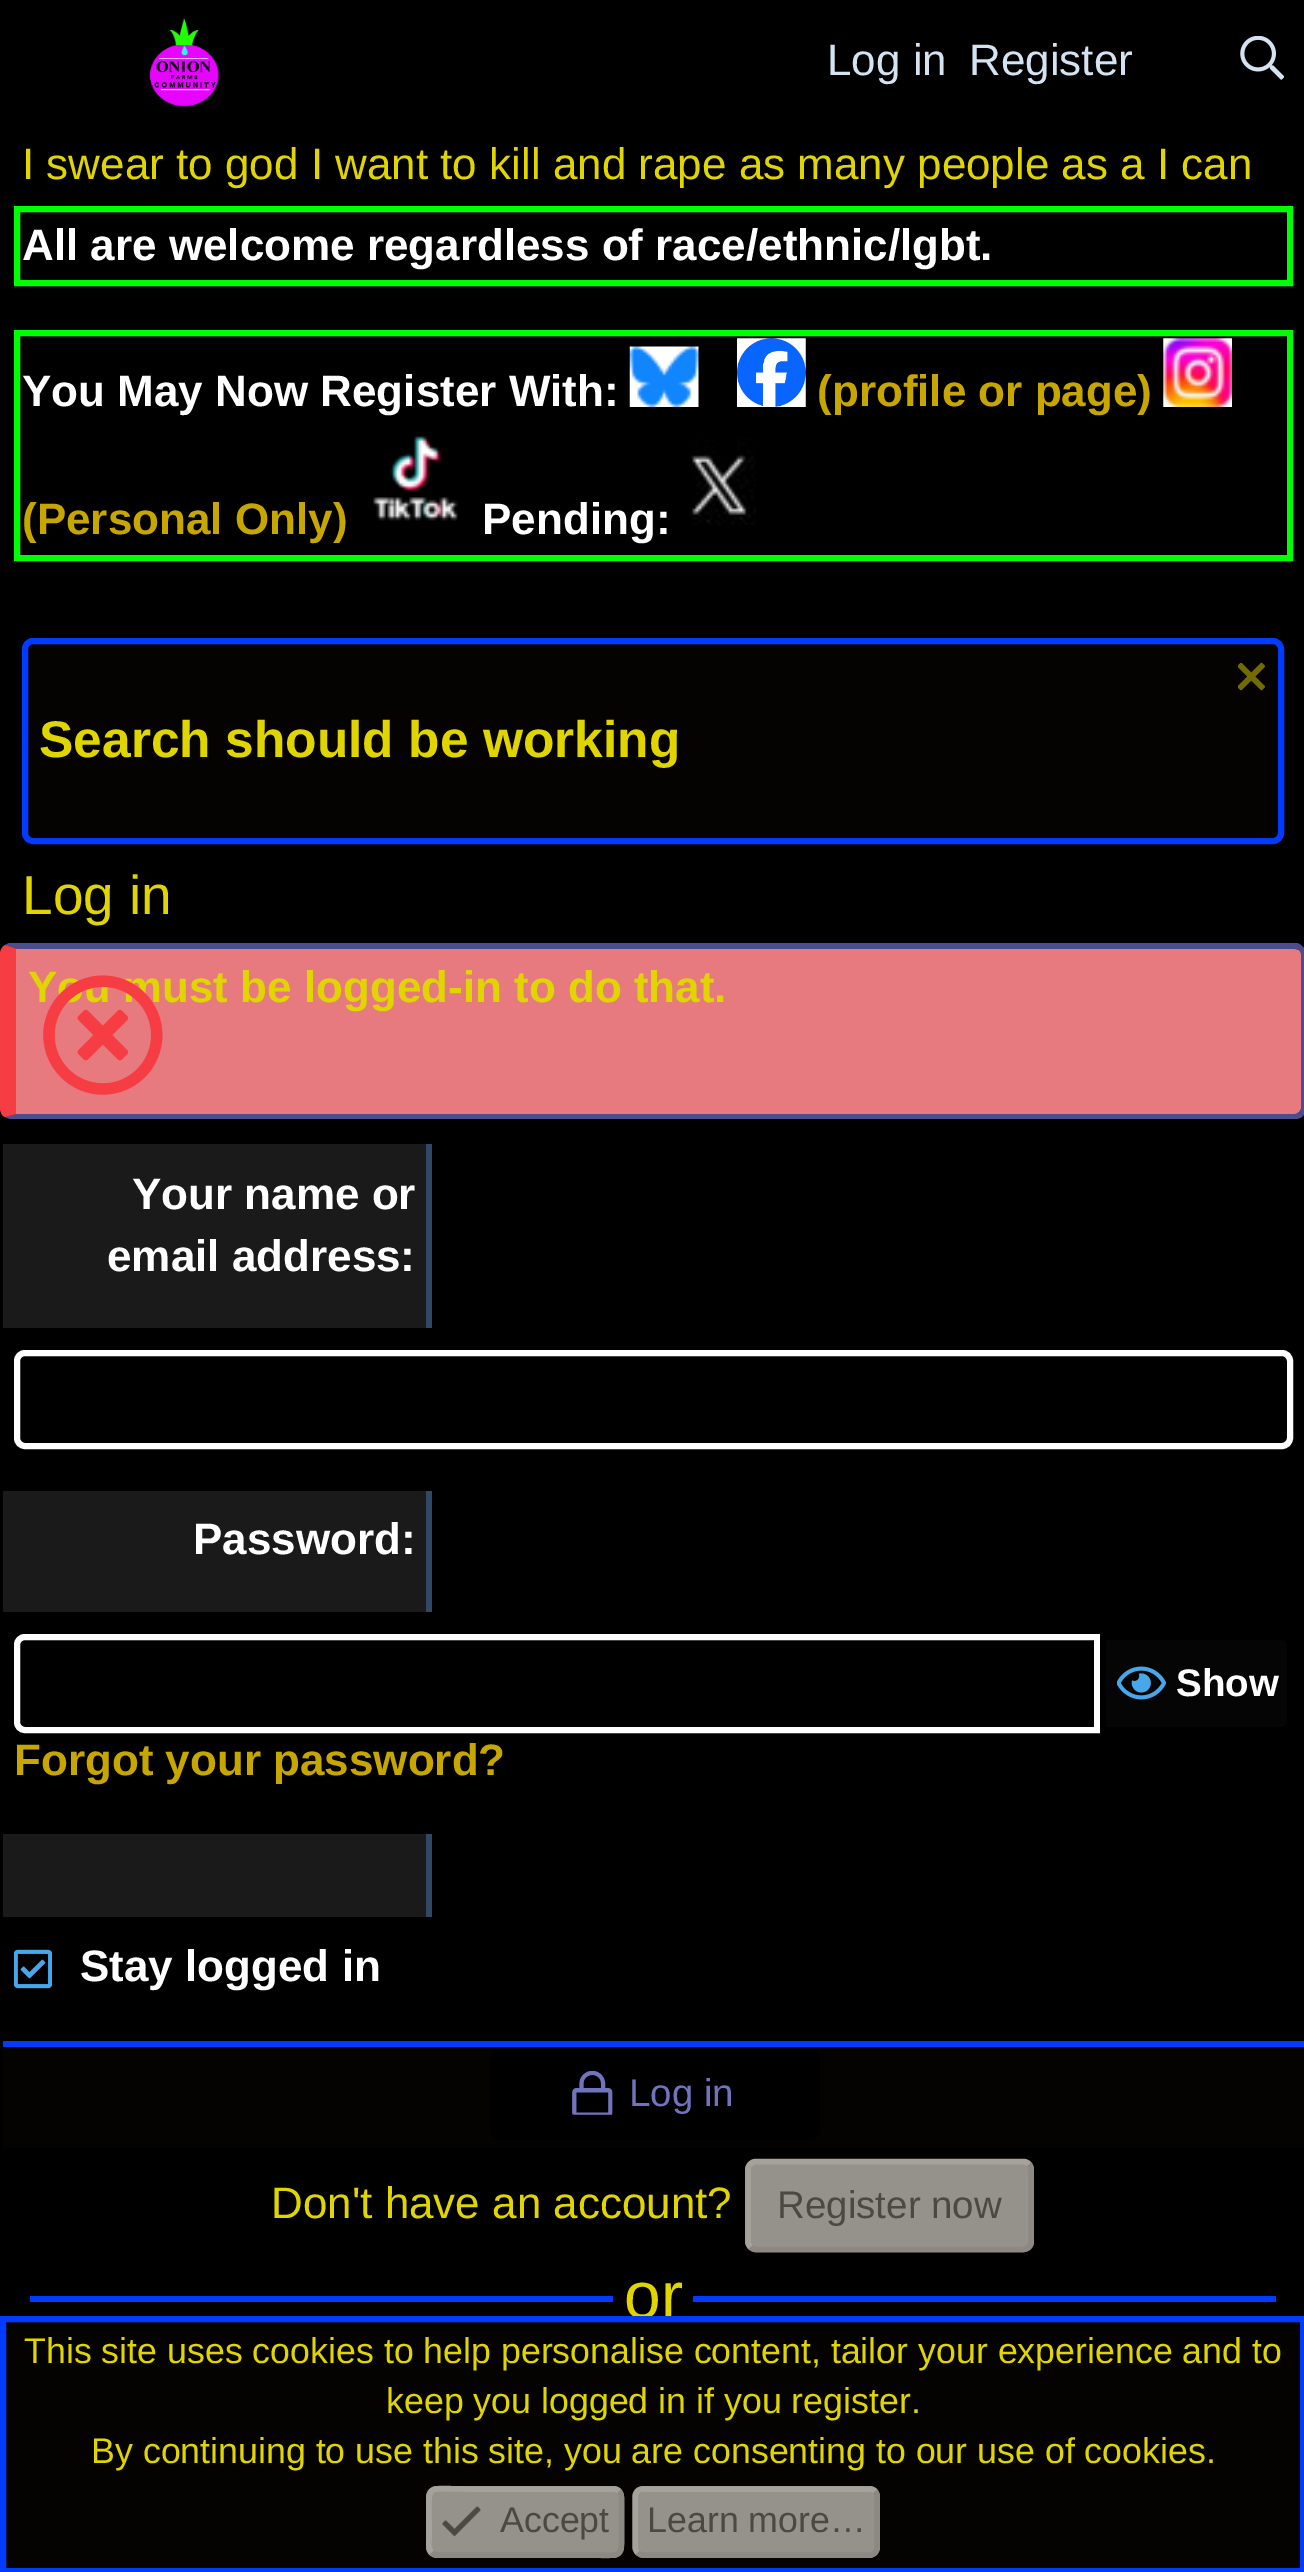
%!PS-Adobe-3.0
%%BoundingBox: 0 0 1304 2572
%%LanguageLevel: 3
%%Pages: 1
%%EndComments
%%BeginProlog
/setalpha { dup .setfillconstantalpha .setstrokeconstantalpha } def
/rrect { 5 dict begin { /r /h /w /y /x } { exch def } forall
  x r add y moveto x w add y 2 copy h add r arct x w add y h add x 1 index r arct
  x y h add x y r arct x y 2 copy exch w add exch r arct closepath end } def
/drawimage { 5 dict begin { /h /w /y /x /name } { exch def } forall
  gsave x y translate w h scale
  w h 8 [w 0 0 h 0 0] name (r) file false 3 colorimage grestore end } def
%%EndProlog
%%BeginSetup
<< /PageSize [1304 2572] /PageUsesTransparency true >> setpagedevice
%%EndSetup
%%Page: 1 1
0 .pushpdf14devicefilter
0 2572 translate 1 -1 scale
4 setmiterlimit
0 setgray
0 0 1304 2572 rectfill
(images/1.raw) 150 18 69 89 drawimage
(images/2.raw) 1240 36 44 44 drawimage
0 1 0 setrgbcolor
6 setlinewidth
17 209 1273 74 rectstroke
17 333 1273 225 rectstroke
(images/3.raw) 629 346 70 61 drawimage
(images/4.raw) 737 338 69 69 drawimage
(images/5.raw) 1163 338 69 69 drawimage
(images/6.raw) 373 436 85 85 drawimage
(images/7.raw) 689 438 67 87 drawimage
0.016 0.012 0.004 setrgbcolor
25 641 1256 200 8 rrect gsave fill grestore
0 0.231 1 setrgbcolor
stroke
(images/8.raw) 1238 662 27 29 drawimage
0.902 0.478 0.494 setrgbcolor
newpath 16 949 moveto 1295 949 lineto 1298 949 1301 951 1301 954 curveto 1301 1108 lineto 1301 1111 1298 1114 1295 1114 curveto 16 1114 lineto closepath fill
0.298 0.298 0.569 setrgbcolor
newpath 5 945 moveto 9 943 lineto 1297 943 lineto 1300 944 1301 945 1303 947 curveto 1299 950 lineto 1298 950 1296 949 1295 949 curveto 17 949 lineto closepath fill
newpath 1303 947 moveto 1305 948 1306 951 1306 954 curveto 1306 1108 lineto 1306 1111 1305 1114 1303 1116 curveto 1299 1112 lineto 1301 1109 lineto 1301 954 lineto 1301 953 1300 951 1299 950 curveto closepath fill
newpath 1303 1116 moveto 1301 1118 1298 1119 1295 1119 curveto 11 1119 lineto 9 1119 7 1118 5 1117 curveto 16 1114 lineto 1295 1114 lineto 1296 1114 1298 1113 1299 1112 curveto closepath fill
0.961 0.239 0.263 setrgbcolor
newpath 16 949 moveto 17 949 lineto 5 945 lineto 2 947 0 950 0 954 curveto 0 1108 lineto 0 1112 2 1116 5 1117 curveto 16 1114 lineto closepath fill
0.098 0.102 0.098 setrgbcolor
3 1144 423 184 rectfill
0.192 0.278 0.4 setrgbcolor
426 1144 6 184 rectfill
1 setgray
17 1353 1273 93 8 rrect stroke
0.098 0.102 0.098 setrgbcolor
3 1491 423 121 rectfill
0.192 0.278 0.4 setrgbcolor
426 1491 6 121 rectfill
1 setgray
newpath 25 1637 moveto 1097 1637 lineto 1097 1730 lineto 25 1730 lineto 20.5 1730 17 1726.5 17 1722 curveto 17 1645 lineto 17 1640.5 20.5 1637 25 1637 curveto closepath stroke
0.02 setgray
newpath 1103 1637 moveto 1282 1637 lineto 1286.5 1637 1290 1640.5 1290 1645 curveto 1290 1722 lineto 1290 1726.5 1286.5 1730 1282 1730 curveto 1103 1730 lineto closepath gsave fill grestore
0 setgray
stroke
(images/10.raw) 1117 1666 49 34 drawimage
0.098 0.102 0.098 setrgbcolor
3 1834 423 83 rectfill
0.192 0.278 0.4 setrgbcolor
426 1834 6 83 rectfill
(images/11.raw) 14 1949 38 40 drawimage
0.016 0.012 0.004 setrgbcolor
3 2047 1301 101 rectfill
0 0.231 1 setrgbcolor
3 2041 1301 6 rectfill
0 setgray
490 2049 330 91 11 rrect fill
(images/12.raw) 572 2071 41 44 drawimage
0.58 0.573 0.545 setrgbcolor
745 2159 289 93 11 rrect fill
0.97 setalpha
0.553 0.537 0.51 setrgbcolor
5.5 setlinewidth
newpath 1029 2164 moveto 1030.5 2165.5 1031 2167.5 1031 2170 curveto 1031 2241 lineto 1031 2243.5 1030.5 2245.5 1029 2247 curveto 1027.5 2248.5 1025 2249.5 1023 2249.5 curveto 756 2249.5 lineto 754 2249.5 752 2248.5 750.5 2247 curveto stroke
0.647 0.639 0.612 setrgbcolor
newpath 750.5 2247 moveto 749 2245.5 748 2243.5 748 2241 curveto 748 2170 lineto 748 2167.5 749 2165.5 750.5 2164 curveto 752 2162.5 754 2161.5 756 2161.5 curveto 1023 2161.5 lineto 1025 2161.5 1027.5 2162.5 1029 2164 curveto stroke
1 setalpha
0 0.231 1 setrgbcolor
30 2296 583 6 rectfill
693 2296 583 6 rectfill
/LiberationSans-Regular [44 0 0 -44 0 0] selectfont
0.831 0.89 0.949 setrgbcolor
827 75 moveto (Log in) show
969 75 moveto (Register) show
0.878 0.835 0 setrgbcolor
22 179 moveto (I swear to god I want to kill and rape as many people as a I can) show
/LiberationSans-Bold [44 0 0 -44 0 0] selectfont
1 setgray
22 260 moveto (All are welcome regardless of race/ethnic/lgbt.) show
22 406 moveto (You May Now Register With:) show
0.78 0.651 0 setrgbcolor
817 406 moveto (\(profile or page\)) show
22 534 moveto (\(Personal Only\)) show
1 setgray
482 534 moveto (Pending:) show
/LiberationSans-Bold [51.5 0 0 -51.5 0 0] selectfont
0.878 0.835 0 setrgbcolor
39 757 moveto (Search should be working) show
/LiberationSans-Regular [55 0 0 -55 0 0] selectfont
22 914 moveto (Log in) show
/LiberationSans-Bold [44 0 0 -44 0 0] selectfont
28 1002 moveto (Y) show
(images/9.raw) 43 975 120 120 drawimage
162 1002 moveto (ust be logged-in to do that.) show
1 setgray
132 1209 moveto (Your name or) show
107 1271 moveto (email address:) show
193 1554 moveto (Password:) show
/LiberationSans-Bold [38.5 0 0 -38.5 0 0] selectfont
1176 1696 moveto (Show) show
/LiberationSans-Bold [44 0 0 -44 0 0] selectfont
0.78 0.651 0 setrgbcolor
14 1775 moveto (Forgot your password?) show
1 setgray
80 1981 moveto (Stay logged in) show
/LiberationSans-Regular [38.5 0 0 -38.5 0 0] selectfont
0.451 0.451 0.741 setrgbcolor
629 2106 moveto (Log in) show
/LiberationSans-Regular [44 0 0 -44 0 0] selectfont
0.878 0.835 0 setrgbcolor
271 2218 moveto (Don't have an account?) show
/LiberationSans-Regular [38.5 0 0 -38.5 0 0] selectfont
0.294 0.286 0.267 setrgbcolor
777 2218 moveto (Register now) show
/LiberationSans-Regular [66 0 0 -66 0 0] selectfont
0.878 0.835 0 setrgbcolor
624 2318 moveto (or) show
0.016 0.012 0.004 setrgbcolor
newpath 3 2319 moveto 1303 2319 lineto 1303 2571 lineto 3 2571 lineto closepath gsave fill grestore
0 0.231 1 setrgbcolor
6 setlinewidth
stroke
/LiberationSans-Regular [35.75 0 0 -35.75 0 0] selectfont
0.878 0.835 0 setrgbcolor
24 2363 moveto (This site uses cookies to help personalise content, tailor your experience and to) show
386 2413 moveto (keep you logged in if you register.) show
91 2463 moveto (By continuing to use this site, you are consenting to our use of cookies.) show
0.584 0.573 0.545 setrgbcolor
426 2486 198 72 11 rrect fill
0.97 setalpha
0.553 0.537 0.51 setrgbcolor
5.5 setlinewidth
newpath 619 2491 moveto 622.5 2495 621.5 2501 621.5 2505 curveto 621.5 2522 lineto 621.5 2561 626 2555 584 2555 curveto 437 2555 lineto 435 2554.5 433 2554 431.5 2552.5 curveto stroke
0.647 0.639 0.612 setrgbcolor
newpath 431.5 2552.5 moveto 428 2548.5 429 2542.5 429 2538 curveto 429 2522 lineto 429 2482.5 424.5 2489 466.5 2489 curveto 613 2489 lineto 615.5 2489 617.5 2489.5 619 2491 curveto stroke
1 setalpha
(images/13.raw) 442 2506 39 31 drawimage
0.294 0.286 0.267 setrgbcolor
500 2532 moveto (Accept) show
0.584 0.573 0.545 setrgbcolor
633 2486 247 72 11 rrect fill
0.97 setalpha
0.553 0.537 0.51 setrgbcolor
newpath 875 2491 moveto 876.5 2492.5 877 2495 877 2497 curveto 877 2546.5 lineto 877 2548.5 876.5 2551 875 2552.5 curveto 873.5 2554 871 2555 869 2555 curveto 643.5 2555 lineto 641.5 2555 639 2554 637.5 2552.5 curveto stroke
0.647 0.639 0.612 setrgbcolor
newpath 637.5 2552.5 moveto 636 2551 635 2548.5 635 2546.5 curveto 635 2497 lineto 635 2495 636 2492.5 637.5 2491 curveto 639 2489.5 641.5 2489 643.5 2489 curveto 869 2489 lineto 871 2489 873.5 2489.5 875 2491 curveto stroke
1 setalpha
0.294 0.286 0.267 setrgbcolor
647 2532 moveto (Learn more…) show
.poppdf14devicefilter showpage
%%EOF
